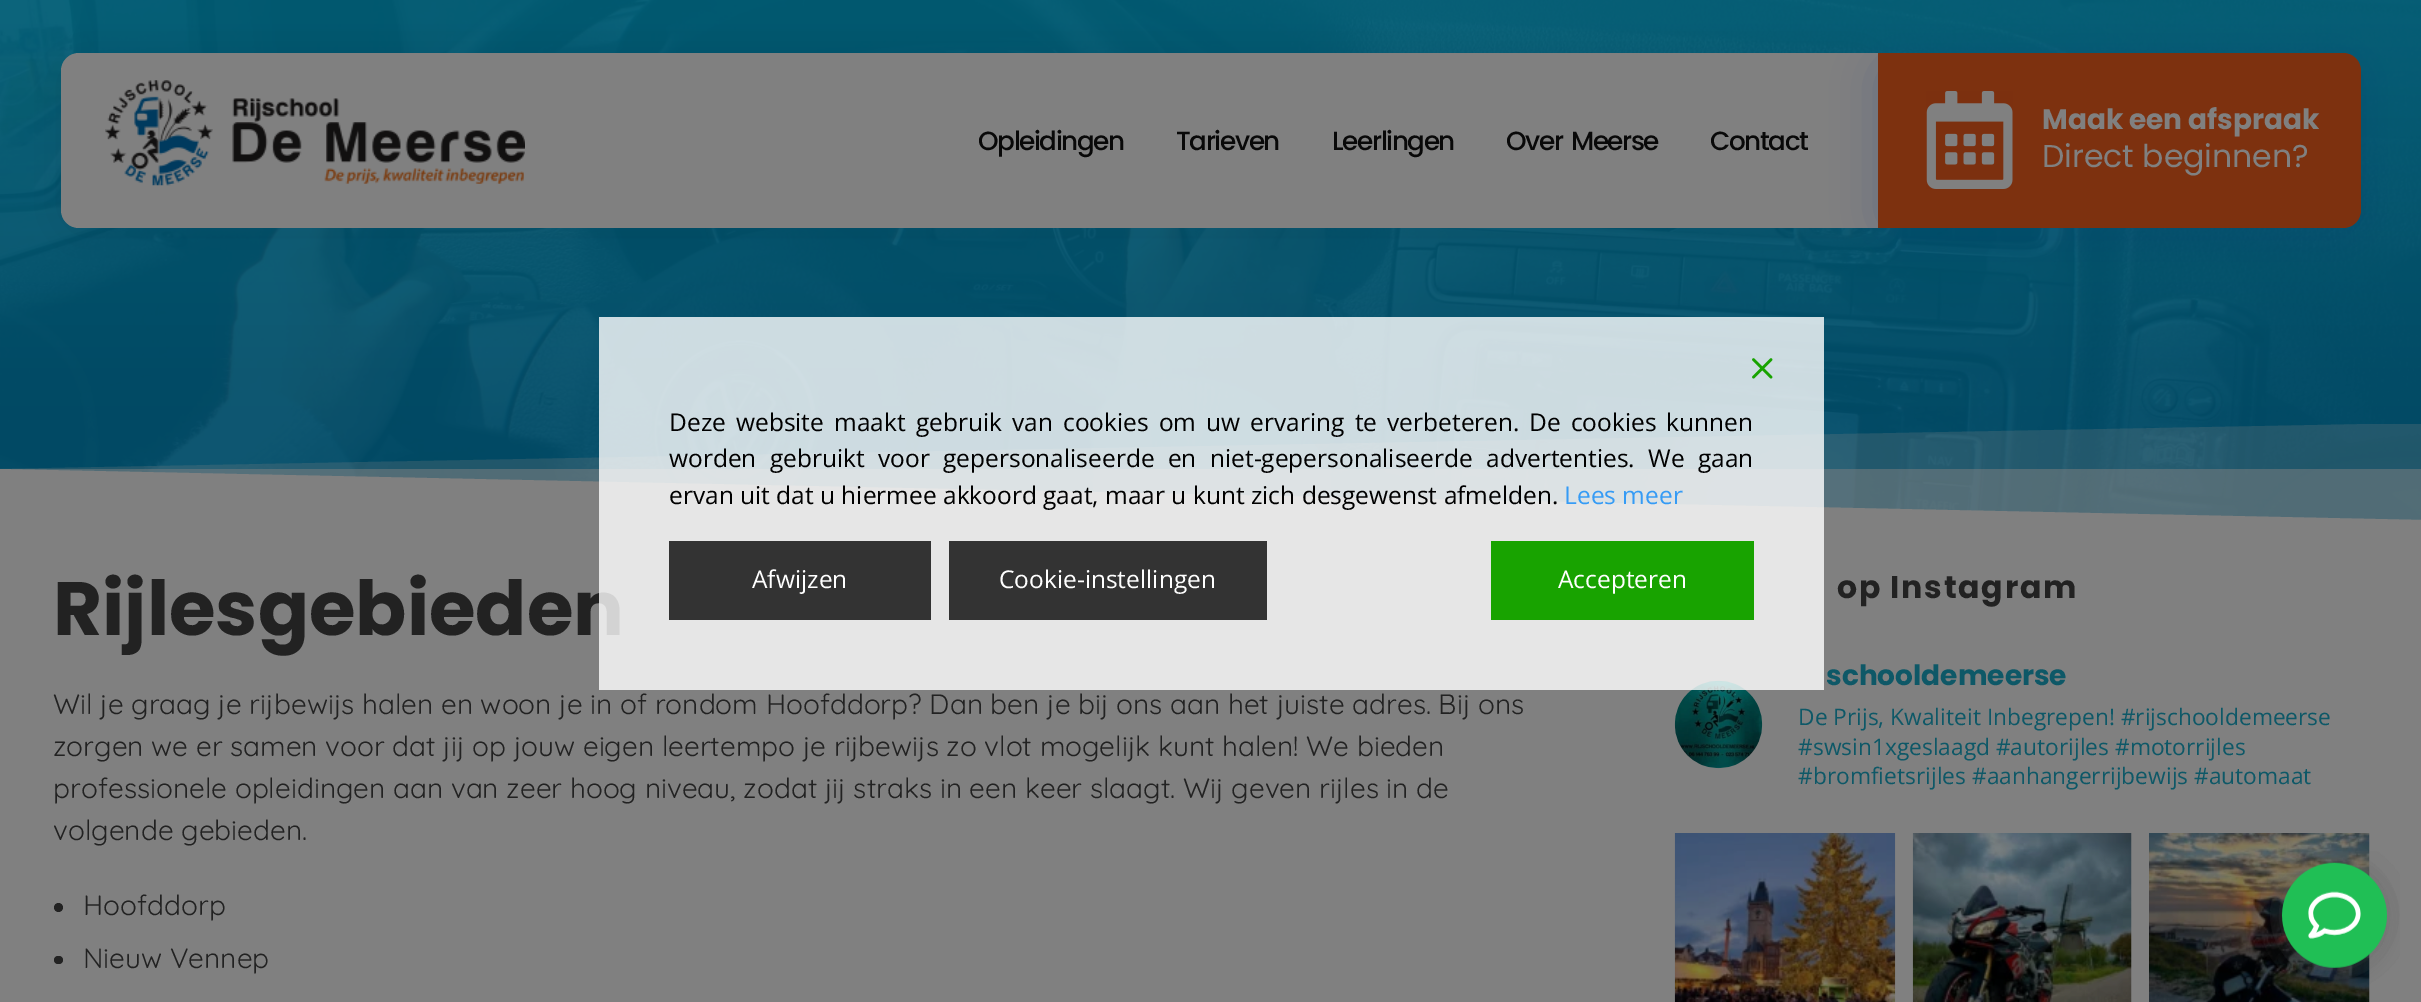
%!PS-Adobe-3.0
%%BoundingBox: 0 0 2421 1002
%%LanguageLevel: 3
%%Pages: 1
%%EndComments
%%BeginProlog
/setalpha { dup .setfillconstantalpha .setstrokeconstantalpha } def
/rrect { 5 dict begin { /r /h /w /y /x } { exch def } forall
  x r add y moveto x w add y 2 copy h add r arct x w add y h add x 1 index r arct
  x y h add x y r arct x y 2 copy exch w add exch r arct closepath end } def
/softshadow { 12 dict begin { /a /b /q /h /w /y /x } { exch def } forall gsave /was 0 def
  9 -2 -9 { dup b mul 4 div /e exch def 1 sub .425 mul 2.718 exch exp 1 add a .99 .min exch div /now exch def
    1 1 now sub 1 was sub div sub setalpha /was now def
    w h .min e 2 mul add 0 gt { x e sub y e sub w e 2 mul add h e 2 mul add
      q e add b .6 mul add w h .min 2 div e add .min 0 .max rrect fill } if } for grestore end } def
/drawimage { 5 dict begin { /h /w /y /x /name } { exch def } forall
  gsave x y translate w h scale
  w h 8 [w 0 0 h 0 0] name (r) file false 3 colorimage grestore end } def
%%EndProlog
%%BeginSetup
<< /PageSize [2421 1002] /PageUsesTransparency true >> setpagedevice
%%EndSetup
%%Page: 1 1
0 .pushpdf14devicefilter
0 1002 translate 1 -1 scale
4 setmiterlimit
0.502 setgray
0 0 2421 1002 rectfill
(images/3.raw) 0 0 2421 520 drawimage
0.89 setalpha
gsave newpath 0 0 moveto 2421 0 lineto 2421 520 lineto 0 520 lineto closepath clip newpath
<< /ShadingType 2 /ColorSpace /DeviceRGB /Coords [1211 0 1211 520] /Extend [true true] /Function << /FunctionType 3 /Domain [0 1] /Functions [<< /FunctionType 2 /Domain [0 1] /C0 [0 0.388 0.49] /C1 [0 0.318 0.435] /N 1 >> << /FunctionType 2 /Domain [0 1] /C0 [0 0.318 0.435] /C1 [0 0.318 0.435] /N 1 >>] /Bounds [0.8] /Encode [0 1 0 1] >> >> shfill grestore
1 setalpha
0 setgray
61 58 1817 175 18 22 0.09 softshadow
0.502 setgray
newpath 79 53 moveto 1878 53 lineto 1878 228 lineto 79 228 lineto 69 228 61 220 61 210 curveto 61 71 lineto 61 61 69 53 79 53 curveto closepath fill
(images/1.raw) 105 80 420 106 drawimage
0 0.176 0.459 setrgbcolor
1878 60 483 175 18 22 0.2 softshadow
0.49 0.192 0.059 setrgbcolor
newpath 1878 53 moveto 2343 53 lineto 2353 53 2361 61 2361 71 curveto 2361 210 lineto 2361 220 2353 228 2343 228 curveto 1878 228 lineto closepath fill
(images/2.raw) 1926 91 87 98 drawimage
0.502 setgray
newpath 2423 520 moveto -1 520 lineto -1 469 lineto closepath fill
0.5 setalpha
3 469 2418 51 rectfill
gsave
0 424 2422 98 rectclip
0.25 setalpha
newpath -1 520 moveto 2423 520 lineto 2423 423 lineto -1 469 lineto closepath fill
grestore
1 setalpha
0.133 setgray
newpath 58.5 907.5 4.5 0 360 arc closepath fill
54 956 9 8 4 rrect fill
(images/4.raw) 1674 680 89 89 drawimage
(images/5.raw) 1674 833 222 169 drawimage
(images/6.raw) 1912 833 220 169 drawimage
(images/7.raw) 2149 833 221 169 drawimage
(images/9.raw) 2258 851 142 140 drawimage
/Poppins-Medium [26.25 0 0 -26.25 0 0] selectfont
0.035 setgray
978 150 moveto -1.4 0 (Opleidingen) ashow
1176 150 moveto -1.4 0 (Tarieven) ashow
1332 150 moveto -1.4 0 (Leerlingen) ashow
1506 150 moveto 3 0 32 -1.4 0 (Over Meerse) awidthshow
1710 150 moveto -1.4 0 (Contact) ashow
/Poppins-Bold [28 0 0 -28 0 0] selectfont
0.502 setgray
2042 129 moveto (Maak een afspraak) show
/Poppins-Regular [31.5 0 0 -31.5 0 0] selectfont
2042 167 moveto (Direct beginnen?) show
/Poppins-Bold [75.5 0 0 -75.5 0 0] selectfont
0.133 setgray
53 635 moveto (Rijlesgebieden) show
/Quicksand-Regular [28 0 0 -28 0 0] selectfont
53 714 moveto (Wil je graag je rijbewijs halen en woon je in of rondom Hoofddorp? Dan ben je bij ons aan het juiste adres. Bij ons) show
53 756 moveto (zorgen we er samen voor dat jij op jouw eigen leertempo je rijbewijs zo vlot mogelijk kunt halen! We bieden) show
53 798 moveto (professionele opleidingen aan van zeer hoog niveau, zodat jij straks in een keer slaagt. Wij geven rijles in de) show
53 840 moveto (volgende gebieden.) show
83 915 moveto (Hoofddorp) show
83 968 moveto (Nieuw Vennep) show
/Poppins-Bold [31.5 0 0 -31.5 0 0] selectfont
1837 598 moveto 1.75 0 (op Instagram) ashow
/Poppins-Bold [28 0 0 -28 0 0] selectfont
0.055 0.345 0.404 setrgbcolor
1826 685 moveto (schooldemeerse) show
/OpenSans-Regular [22.75 0 0 -22.75 0 0] selectfont
1798 725 moveto (De Prijs, Kwaliteit Inbegrepen! #rijschooldemeerse) show
1798 755 moveto (#swsin1xgeslaagd #autorijles #motorrijles) show
1798 784 moveto (#bromfietsrijles #aanhangerrijbewijs #automaat) show
0.8 setalpha
1 setgray
599 317 1225 373 rectfill
1 setalpha
(images/8.raw) 1752 358 21 21 drawimage
/OpenSans-Regular [24.5 0 0 -24.5 0 0] selectfont
0 setgray
669 431 moveto 3.75 0 32 (Deze website maakt gebruik van cookies om uw ervaring te verbeteren.) widthshow
1529 431 moveto 3.75 0 32 (De cookies kunnen) widthshow
669 467 moveto 7 0 32 (worden gebruikt voor gepersonaliseerde en niet-gepersonaliseerde advertenties. We gaan) widthshow
669 504 moveto (ervan uit dat u hiermee akkoord gaat, maar u kunt zich desgewenst afmelden.) show
0.208 0.608 0.961 setrgbcolor
1564 504 moveto (Lees meer) show
0.2 setgray
669 541 262 79 rectfill
1 setgray
752 588 moveto (Afwijzen) show
0.2 setgray
949 541 318 79 rectfill
1 setgray
999 588 moveto (Cookie-instellingen) show
0.094 0.639 0 setrgbcolor
1491 541 263 79 rectfill
1 setgray
1558 588 moveto (Accepteren) show
.poppdf14devicefilter showpage
%%EOF
